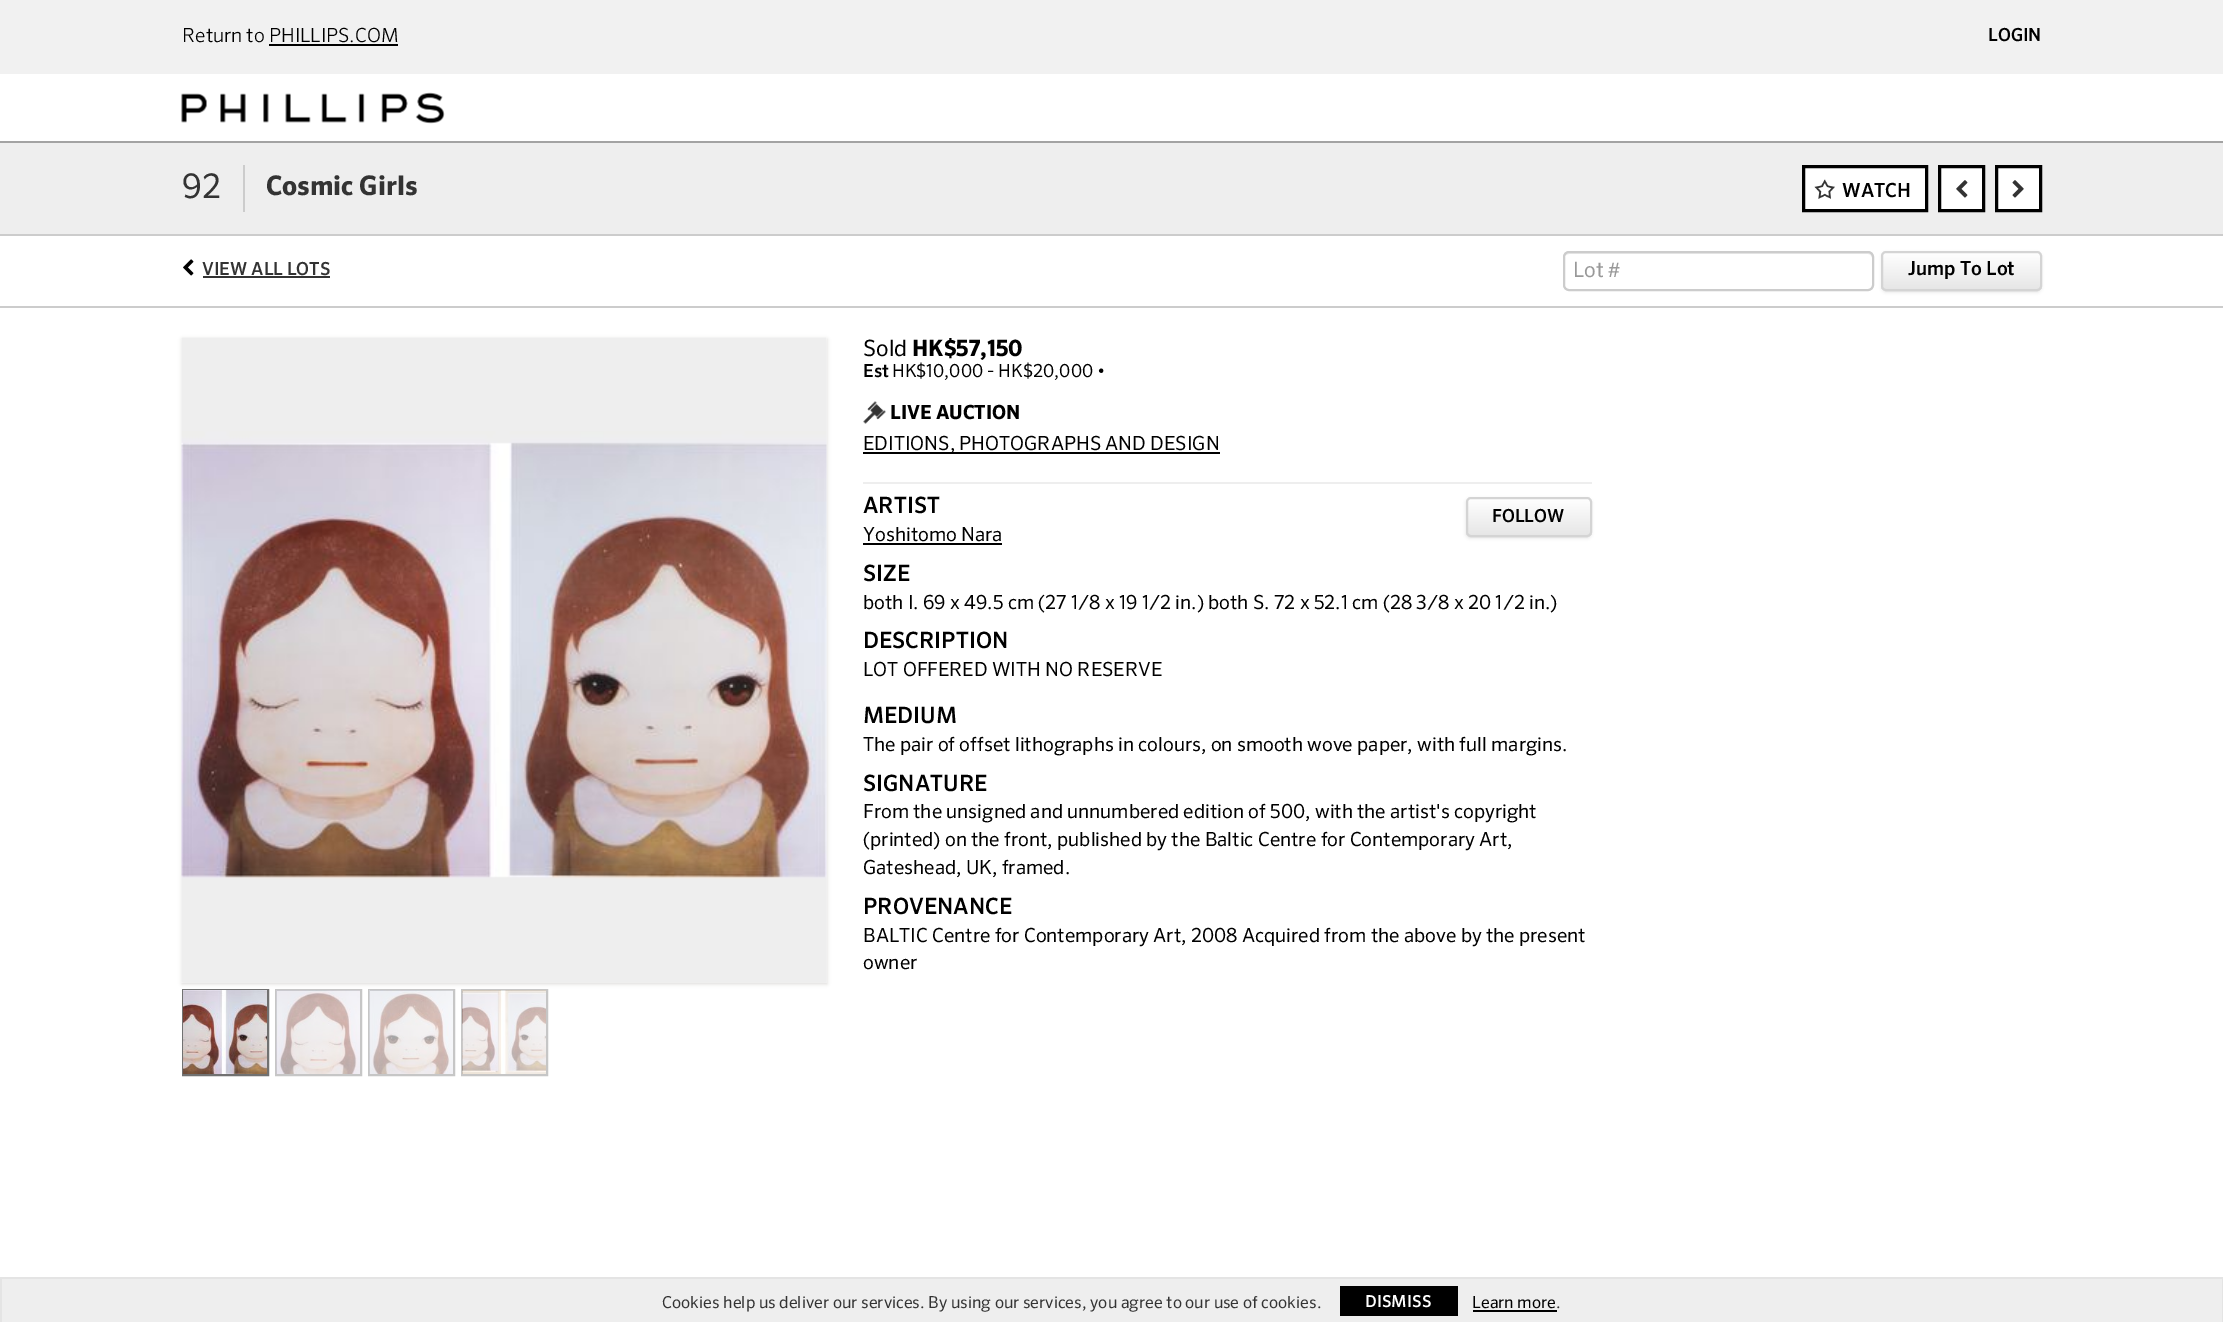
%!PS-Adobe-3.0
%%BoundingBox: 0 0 2223 1322
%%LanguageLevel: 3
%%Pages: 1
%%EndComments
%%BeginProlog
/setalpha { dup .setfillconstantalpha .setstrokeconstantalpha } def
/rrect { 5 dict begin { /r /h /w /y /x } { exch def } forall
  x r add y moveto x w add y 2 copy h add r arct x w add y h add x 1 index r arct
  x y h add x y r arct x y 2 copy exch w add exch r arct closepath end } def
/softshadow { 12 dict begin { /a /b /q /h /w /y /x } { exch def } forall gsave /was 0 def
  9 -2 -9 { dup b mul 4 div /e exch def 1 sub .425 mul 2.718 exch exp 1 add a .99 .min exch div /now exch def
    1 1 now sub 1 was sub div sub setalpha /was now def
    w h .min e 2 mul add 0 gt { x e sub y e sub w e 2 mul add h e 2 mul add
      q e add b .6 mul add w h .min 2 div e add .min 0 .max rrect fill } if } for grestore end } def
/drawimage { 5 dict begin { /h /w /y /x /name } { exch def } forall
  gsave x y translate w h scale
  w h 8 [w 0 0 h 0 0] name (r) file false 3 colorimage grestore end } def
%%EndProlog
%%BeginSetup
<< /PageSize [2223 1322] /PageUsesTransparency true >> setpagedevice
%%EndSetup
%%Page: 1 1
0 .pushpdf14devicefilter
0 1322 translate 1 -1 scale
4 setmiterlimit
1 setgray
0 0 2223 1322 rectfill
0.639 setgray
0 141 2223 2 rectfill
0.945 setgray
0 0 2223 74 rectfill
0 setgray
269 44 129 2 rectfill
(images/1.raw) 181 92 264 32 drawimage
0.933 setgray
0 143 2223 91 rectfill
0.8 setgray
0 234 2223 2 rectfill
243 165 2 47 rectfill
1 setgray
newpath 1803.5 166.5 moveto 1926.5 166.5 lineto 1926.5 210.5 lineto 1803.5 210.5 lineto closepath gsave fill grestore
0 setgray
3 setlinewidth
stroke
(images/2.raw) 1814 179 21 20 drawimage
1 setgray
newpath 1939.5 166.5 moveto 1983.5 166.5 lineto 1983.5 210.5 lineto 1939.5 210.5 lineto closepath gsave fill grestore
0 setgray
stroke
(images/3.raw) 1956 180 12 18 drawimage
1 setgray
newpath 1996.5 166.5 moveto 2040.5 166.5 lineto 2040.5 210.5 lineto 1996.5 210.5 lineto closepath gsave fill grestore
0 setgray
stroke
(images/4.raw) 2012 180 12 18 drawimage
(images/5.raw) 183 259 11 17 drawimage
0.2 setgray
203 276 127 2 rectfill
0.925 setgray
newpath 1569 254 moveto 1868 254 lineto 1870 254 1872 256 1872 258 curveto 1872 257 lineto 1872 254 1870 252 1867 252 curveto 1570 252 lineto 1568 252 1566 254 1565 256 curveto 1566 255 1568 254 1569 254 curveto closepath fill
0.8 setgray
2 setlinewidth
1564 252 309 38 5 rrect stroke
0 setgray
1883 254 157 37 3 2 0.2 softshadow
gsave
1881 251 161 40 5 rrect clip newpath
gsave newpath 1881 252 moveto 2042 252 lineto 2042 290 lineto 1881 290 lineto closepath clip newpath
<< /ShadingType 2 /ColorSpace /DeviceRGB /Coords [1961 252 1961 290] /Extend [true true] /Function << /FunctionType 2 /Domain [0 1] /C0 [1 1 1] /C1 [0.902 0.902 0.902] /N 1 >> >> shfill grestore
grestore
0.831 setgray
1882 252 159 38 4 rrect stroke
0.8 setgray
0 306 2223 2 rectfill
0.855 0.851 0.843 setrgbcolor
182 339 645 645 0 2 1 softshadow
(images/6.raw) 181 337 646 646 drawimage
0.443 setgray
183 990 85 85 rectstroke
0.776 setgray
276 990 85 85 rectstroke
369 990 85 85 rectstroke
462 990 85 85 rectstroke
(images/7.raw) 183 990 84 84 drawimage
(images/8.raw) 276 990 84 84 drawimage
(images/9.raw) 369 990 84 84 drawimage
(images/10.raw) 462 990 84 84 drawimage
(images/11.raw) 863 401 23 23 drawimage
0 setgray
863 452 357 2 rectfill
0.933 setgray
863 482 729 2 rectfill
0 setgray
1467 500 123 37 3 2 0.2 softshadow
gsave
1466 497 126 40 5 rrect clip newpath
gsave newpath 1466 498 moveto 1592 498 lineto 1592 536 lineto 1466 536 lineto closepath clip newpath
<< /ShadingType 2 /ColorSpace /DeviceRGB /Coords [1529 498 1529 536] /Extend [true true] /Function << /FunctionType 2 /Domain [0 1] /C0 [1 1 1] /C1 [0.902 0.902 0.902] /N 1 >> >> shfill grestore
grestore
0.831 setgray
1467 498 124 38 4 rrect stroke
0 setgray
863 543 139 2 rectfill
0.933 setgray
2 1279 2220 43 rectfill
0.894 setgray
0 1277 2223 2 rectfill
2222 1277 1 45 rectfill
0 1277 2 45 rectfill
0 setgray
1340 1286 118 30 rectfill
1473 1310 84 2 rectfill
/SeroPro-Light [19.5 0 0 -19.5 0 0] selectfont
182 42 moveto (Return to PHILLIPS.COM) show
/SeroPro-Medium [18 0 0 -18 0 0] selectfont
1988 41 moveto (LOGIN) show
/SeroPro-Regular [34 0 0 -34 0 0] selectfont
0.2 setgray
182 198 moveto (92) show
/SeroPro-Bold [27 0 0 -27 0 0] selectfont
266 195 moveto (Cosmic Girls) show
/SeroPro-Medium [19.5 0 0 -19.5 0 0] selectfont
0 setgray
1842 197 moveto (WATCH) show
/SeroPro-Medium [18 0 0 -18 0 0] selectfont
0.2 setgray
202 275 moveto (VIEW ALL LOTS) show
/SeroPro-Regular [21 0 0 -21 0 0] selectfont
0.6 setgray
1573 277 moveto (Lot #) show
/SeroPro-Medium [19.5 0 0 -19.5 0 0] selectfont
0 setgray
1908 275 moveto (Jump To Lot) show
/SeroPro-Regular [22.5 0 0 -22.5 0 0] selectfont
863 356 moveto (Sold) show
/SeroPro-Bold [22.5 0 0 -22.5 0 0] selectfont
912 356 moveto (HK$57,150) show
/SeroPro-Medium [18 0 0 -18 0 0] selectfont
863 377 moveto (Est) show
/SeroPro-Regular [18 0 0 -18 0 0] selectfont
892 377 moveto (HK$10,000 - HK$20,000 •) show
/SeroPro-Bold [19.5 0 0 -19.5 0 0] selectfont
890 419 moveto (LIVE AUCTION) show
/SeroPro-Regular [19.5 0 0 -19.5 0 0] selectfont
863 450 moveto (EDITIONS, PHOTOGRAPHS AND DESIGN) show
/SeroPro-Medium [22.5 0 0 -22.5 0 0] selectfont
863 513 moveto (ARTIST) show
/SeroPro-Medium [18 0 0 -18 0 0] selectfont
1492 522 moveto (FOLLOW) show
/SeroPro-Regular [19.5 0 0 -19.5 0 0] selectfont
863 541 moveto (Yoshitomo Nara) show
/SeroPro-Medium [22.5 0 0 -22.5 0 0] selectfont
863 581 moveto (SIZE) show
/SeroPro-Regular [19.5 0 0 -19.5 0 0] selectfont
863 609 moveto (both I. 69 x 49.5 cm \(27 1/8 x 19 1/2 in.\) both S. 72 x 52.1 cm \(28 3/8 x 20 1/2 in.\)) show
/SeroPro-Medium [22.5 0 0 -22.5 0 0] selectfont
863 648 moveto (DESCRIPTION) show
/SeroPro-Regular [19.5 0 0 -19.5 0 0] selectfont
863 676 moveto (LOT OFFERED WITH NO RESERVE) show
/SeroPro-Medium [22.5 0 0 -22.5 0 0] selectfont
863 723 moveto (MEDIUM) show
/SeroPro-Regular [19.5 0 0 -19.5 0 0] selectfont
863 751 moveto (The pair of offset lithographs in colours, on smooth wove paper, with full margins.) show
/SeroPro-Medium [22.5 0 0 -22.5 0 0] selectfont
863 791 moveto (SIGNATURE) show
/SeroPro-Regular [19.5 0 0 -19.5 0 0] selectfont
863 818 moveto (From the unsigned and unnumbered edition of 500, with the artist's copyright) show
863 846 moveto (\(printed\) on the front, published by the Baltic Centre for Contemporary Art,) show
863 874 moveto (Gateshead, UK, framed.) show
/SeroPro-Medium [22.5 0 0 -22.5 0 0] selectfont
863 914 moveto (PROVENANCE) show
/SeroPro-Regular [19.5 0 0 -19.5 0 0] selectfont
863 942 moveto (BALTIC Centre for Contemporary Art, 2008 Acquired from the above by the present) show
863 969 moveto (owner) show
/SeroPro-Regular [16.5 0 0 -16.5 0 0] selectfont
0.2 setgray
662 1308 moveto (Cookies help us deliver our services. By using our services, you agree to our use of cookies.) show
/SeroPro-Medium [16.5 0 0 -16.5 0 0] selectfont
1 setgray
1365 1307 moveto (DISMISS) show
/SeroPro-Regular [16.5 0 0 -16.5 0 0] selectfont
0 setgray
1472 1308 moveto (Learn more) show
0.2 setgray
1556 1308 moveto (.) show
.poppdf14devicefilter showpage
%%EOF
